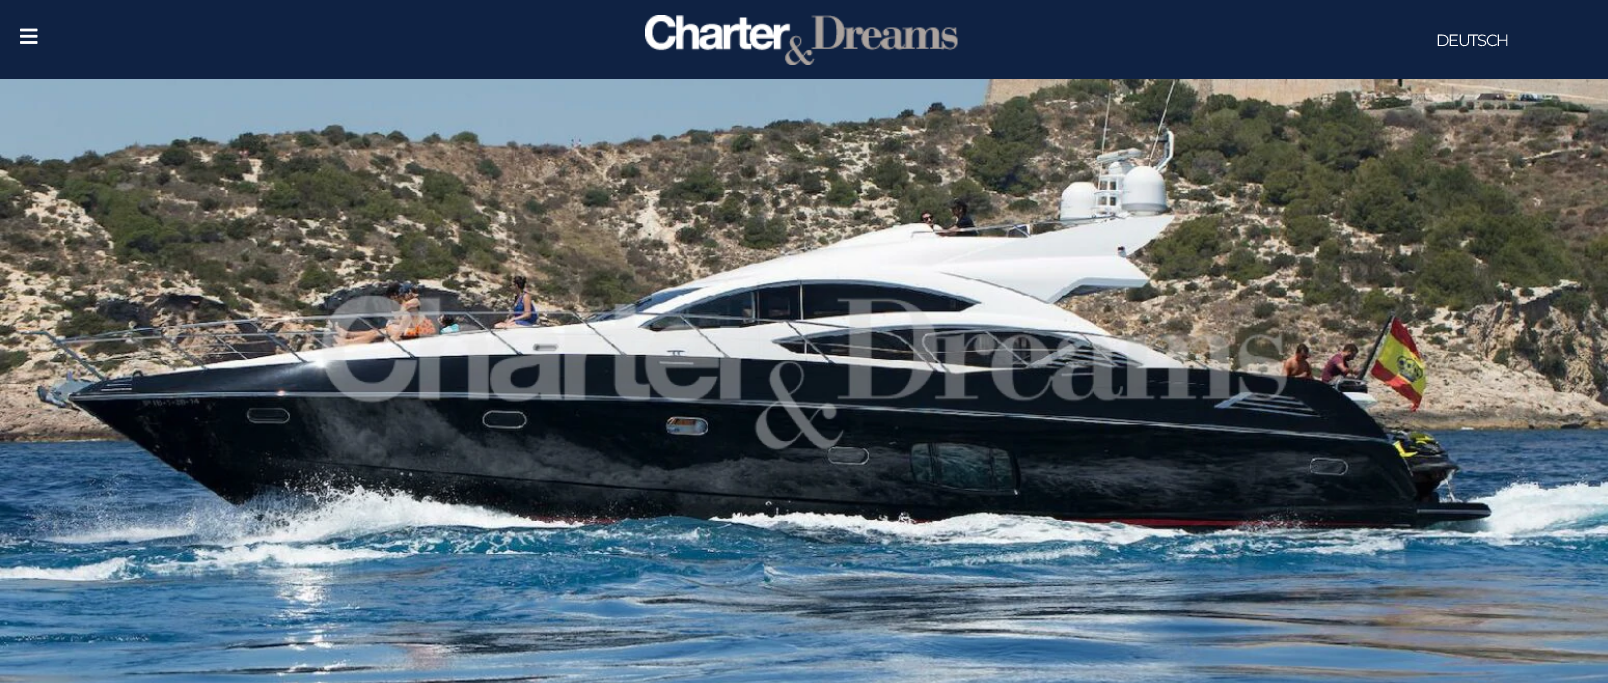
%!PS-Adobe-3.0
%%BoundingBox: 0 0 1608 683
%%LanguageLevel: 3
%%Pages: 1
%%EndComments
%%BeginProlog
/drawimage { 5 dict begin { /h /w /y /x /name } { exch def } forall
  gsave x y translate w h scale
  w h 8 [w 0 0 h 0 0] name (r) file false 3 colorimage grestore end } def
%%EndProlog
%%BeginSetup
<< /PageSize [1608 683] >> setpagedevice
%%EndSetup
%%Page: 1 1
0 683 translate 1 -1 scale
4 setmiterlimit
1 setgray
0 0 1608 683 rectfill
0.059 0.133 0.263 setrgbcolor
0 0 1608 79 rectfill
(images/1.raw) 20 28 18 16 drawimage
(images/2.raw) 645 15 313 50 drawimage
(images/3.raw) 0 79 1608 604 drawimage
/Montserrat-Regular [16.25 0 0 -16.25 0 0] selectfont
1 setgray
1436 46 moveto -1.25 0 (DEUTSCH) ashow
showpage
%%EOF
